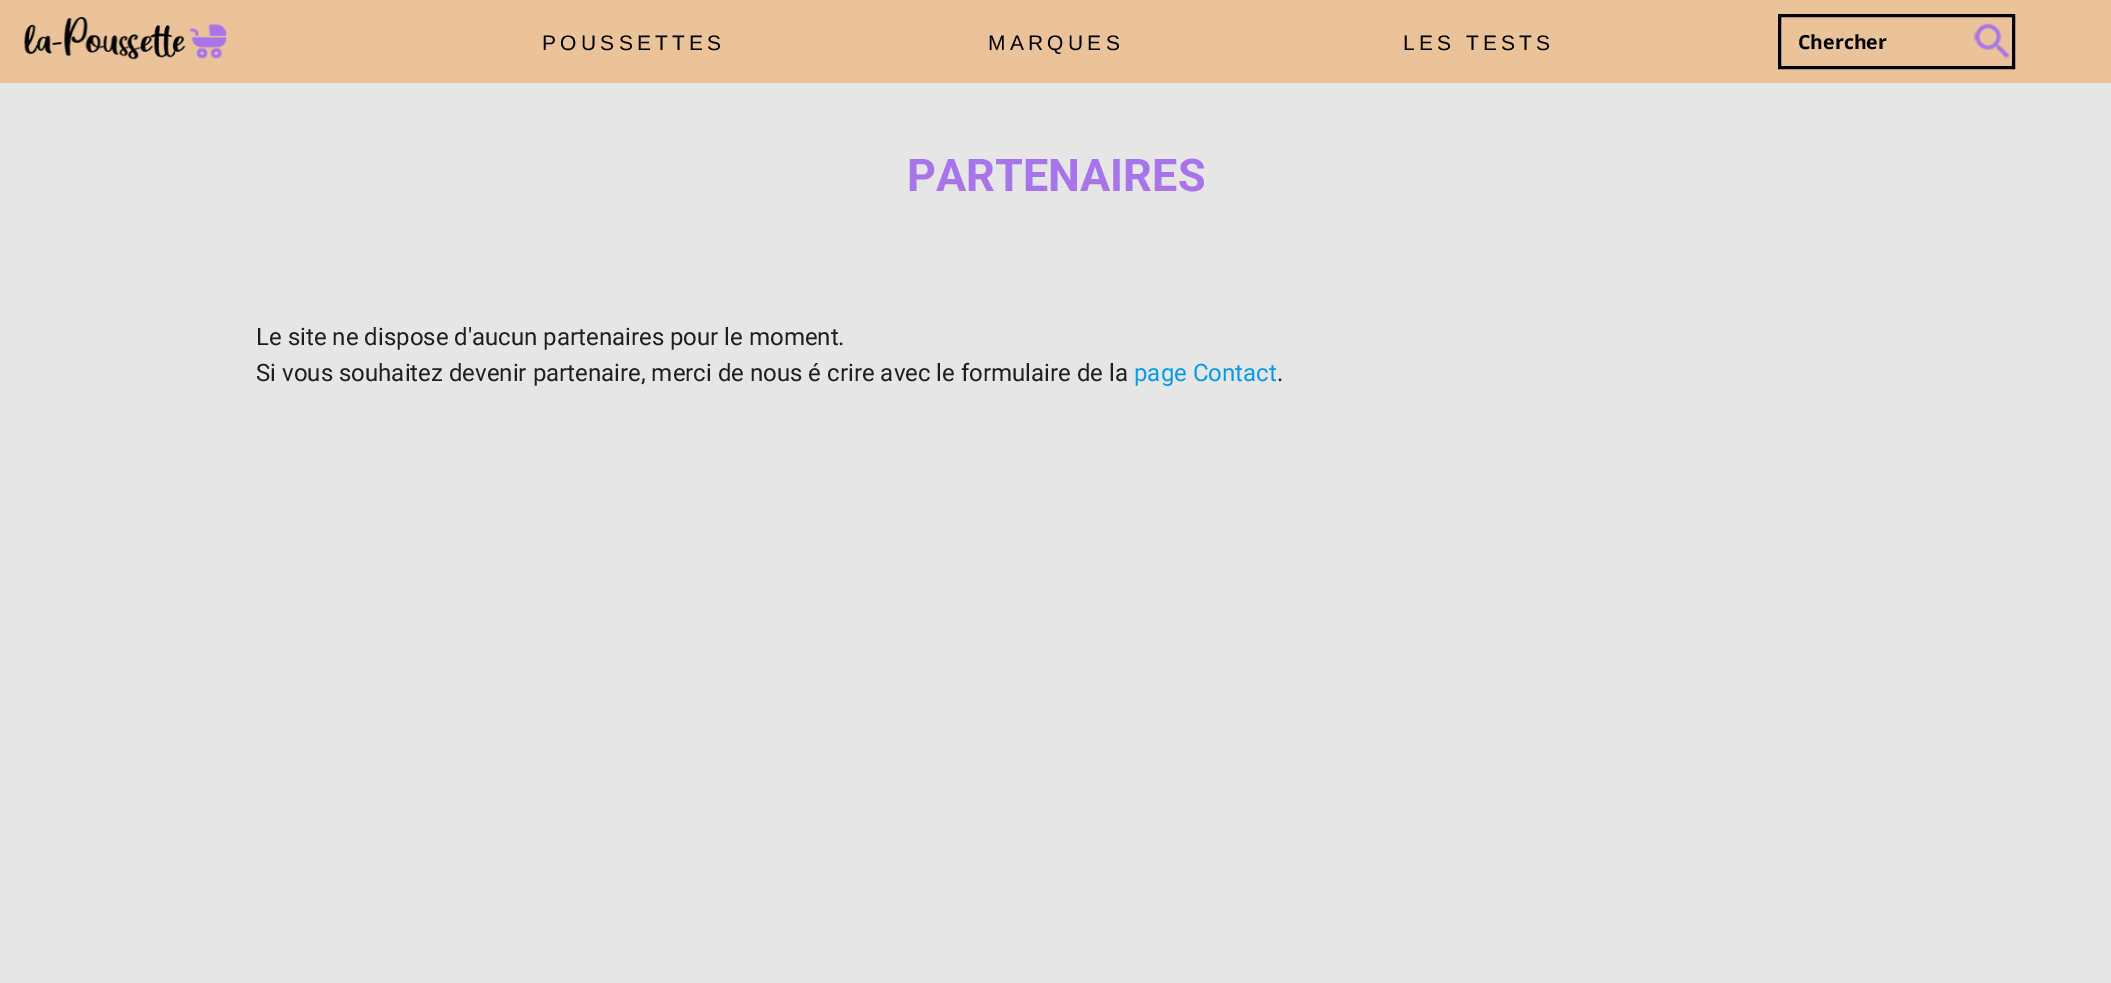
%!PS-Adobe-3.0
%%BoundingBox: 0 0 2111 983
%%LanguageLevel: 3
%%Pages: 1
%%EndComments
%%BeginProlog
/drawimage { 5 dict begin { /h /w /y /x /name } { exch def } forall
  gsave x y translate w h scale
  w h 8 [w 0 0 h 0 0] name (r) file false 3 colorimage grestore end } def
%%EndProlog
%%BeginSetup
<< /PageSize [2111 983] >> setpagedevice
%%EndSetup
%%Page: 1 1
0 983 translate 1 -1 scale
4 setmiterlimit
0.902 setgray
0 0 2111 983 rectfill
0.918 0.765 0.608 setrgbcolor
0 0 2111 83 rectfill
(images/1.raw) 24 17 203 43 drawimage
(images/2.raw) 1974 23 37 36 drawimage
0 setgray
3 setlinewidth
1779.5 15.5 234 52 rectstroke
/LiberationSans-Regular [21 0 0 -21 0 0] selectfont
542 50 moveto 4.25 0 (POUSSETTES) ashow
988 50 moveto 4.25 0 (MARQUES) ashow
1403 50 moveto 4.25 0 (LES TESTS) ashow
/OpenSans-Bold [19.5 0 0 -19.5 0 0] selectfont
1798 49 moveto (Chercher) show
/Roboto-Bold [45 0 0 -45 0 0] selectfont
0.659 0.455 0.914 setrgbcolor
907 191 moveto (PARTENAIRES) show
/Roboto-Regular [24 0 0 -24 0 0] selectfont
0.118 setgray
256 345 moveto (Le site ne dispose d'aucun partenaires pour le moment.) show
256 381 moveto (Si vous souhaitez devenir partenaire, merci de nous é crire avec le formulaire de la) show
0.012 0.608 0.898 setrgbcolor
1134 381 moveto (page Contact) show
0.118 setgray
1277 381 moveto (.) show
showpage
%%EOF
